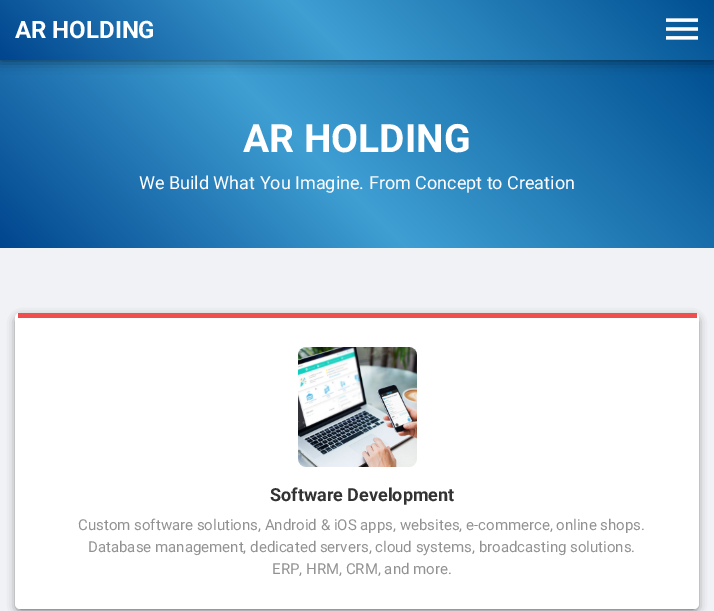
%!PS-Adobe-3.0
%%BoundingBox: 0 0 714 611
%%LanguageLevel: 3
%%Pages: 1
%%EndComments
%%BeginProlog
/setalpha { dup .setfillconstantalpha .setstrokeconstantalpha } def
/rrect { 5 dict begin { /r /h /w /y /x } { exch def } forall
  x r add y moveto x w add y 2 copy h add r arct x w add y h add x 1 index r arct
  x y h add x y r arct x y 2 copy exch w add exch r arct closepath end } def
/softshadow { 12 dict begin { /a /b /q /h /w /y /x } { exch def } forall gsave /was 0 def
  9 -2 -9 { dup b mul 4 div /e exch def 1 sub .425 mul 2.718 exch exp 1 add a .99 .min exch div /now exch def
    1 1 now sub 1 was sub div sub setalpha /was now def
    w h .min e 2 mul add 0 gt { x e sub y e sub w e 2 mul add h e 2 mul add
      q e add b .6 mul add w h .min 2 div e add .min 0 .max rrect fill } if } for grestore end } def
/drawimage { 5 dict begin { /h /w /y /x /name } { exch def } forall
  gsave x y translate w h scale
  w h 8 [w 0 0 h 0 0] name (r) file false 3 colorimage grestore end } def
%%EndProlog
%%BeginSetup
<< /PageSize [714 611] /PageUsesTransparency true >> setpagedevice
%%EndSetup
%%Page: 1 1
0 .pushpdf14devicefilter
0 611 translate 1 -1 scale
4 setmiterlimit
0.941 0.949 0.961 setrgbcolor
0 0 714 611 rectfill
gsave newpath 0 60 moveto 714 60 lineto 714 248 lineto 0 248 lineto closepath clip newpath
<< /ShadingType 2 /ColorSpace /DeviceRGB /Coords [132 380 583 -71] /Extend [true true] /Function << /FunctionType 3 /Domain [0 1] /Functions [<< /FunctionType 2 /Domain [0 1] /C0 [0 0.271 0.557] /C1 [0.247 0.624 0.827] /N 1 >> << /FunctionType 2 /Domain [0 1] /C0 [0.247 0.624 0.827] /C1 [0 0.31 0.569] /N 1 >>] /Bounds [0.45] /Encode [0 1 0 1] >> >> shfill grestore
0 setgray
0 0 714 60 0 6.5 0.59 softshadow
gsave newpath 0 0 moveto 714 0 lineto 714 60 lineto 0 60 lineto closepath clip newpath
<< /ShadingType 2 /ColorSpace /DeviceRGB /Coords [164 223 551 -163] /Extend [true true] /Function << /FunctionType 3 /Domain [0 1] /Functions [<< /FunctionType 2 /Domain [0 1] /C0 [0 0.271 0.557] /C1 [0.247 0.624 0.827] /N 1 >> << /FunctionType 2 /Domain [0 1] /C0 [0.247 0.624 0.827] /C1 [0 0.31 0.569] /N 1 >>] /Bounds [0.45] /Encode [0 1 0 1] >> >> shfill grestore
(images/1.raw) 666 18 32 22 drawimage
18 319 678 290 2 5 0.75 softshadow
1 setgray
15 313 684 296 5 rrect fill
0.941 0.302 0.306 setrgbcolor
18 313 679 5 rectfill
(images/2.raw) 298 347 119 120 drawimage
/Roboto-Bold [24 0 0 -24 0 0] selectfont
1 setgray
15 38 moveto (AR HOLDING) show
/Roboto-Bold [39 0 0 -39 0 0] selectfont
243 152 moveto (AR HOLDING) show
/Roboto-Regular [18 0 0 -18 0 0] selectfont
139 189 moveto (We Build What You Imagine. From Concept to Creation) show
/Roboto-Bold [18 0 0 -18 0 0] selectfont
0.2 setgray
270 501 moveto (Software Development) show
/Roboto-Regular [15 0 0 -15 0 0] selectfont
0.573 setgray
78 530 moveto (Custom software solutions, Android & iOS apps, websites, e-commerce, online shops.) show
88 552 moveto (Database management, dedicated servers, cloud systems, broadcasting solutions.) show
272 574 moveto (ERP, HRM, CRM, and more.) show
.poppdf14devicefilter showpage
%%EOF
